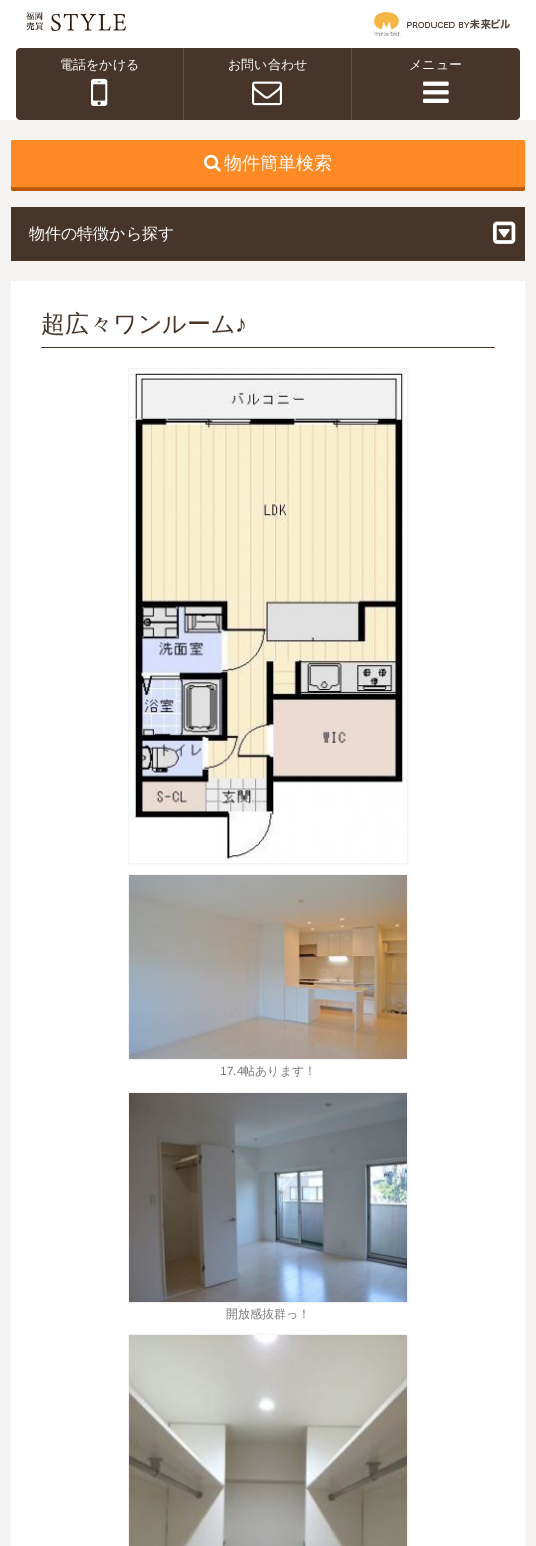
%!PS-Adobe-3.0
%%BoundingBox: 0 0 536 1546
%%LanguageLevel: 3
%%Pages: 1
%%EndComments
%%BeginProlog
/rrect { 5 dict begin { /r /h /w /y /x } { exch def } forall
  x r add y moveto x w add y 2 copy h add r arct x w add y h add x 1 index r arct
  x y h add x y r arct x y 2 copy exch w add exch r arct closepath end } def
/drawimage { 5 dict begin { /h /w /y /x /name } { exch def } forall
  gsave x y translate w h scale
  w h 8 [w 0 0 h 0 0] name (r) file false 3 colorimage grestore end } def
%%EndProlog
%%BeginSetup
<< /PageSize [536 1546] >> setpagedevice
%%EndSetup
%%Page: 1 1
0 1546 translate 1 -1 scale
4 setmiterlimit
0.961 0.957 0.949 setrgbcolor
0 0 536 1546 rectfill
1 setgray
0 0 536 120 rectfill
(images/1.raw) 26 12 100 19 drawimage
(images/2.raw) 374 12 136 24 drawimage
0.278 0.208 0.161 setrgbcolor
newpath 21 48 moveto 184 48 lineto 184 120 lineto 21 120 lineto 18 120 16 118 16 115 curveto 16 53 lineto 16 50 18 48 21 48 curveto closepath fill
0.404 0.302 0.235 setrgbcolor
183 48 1 72 rectfill
(images/3.raw) 91 78 17 28 drawimage
0.278 0.208 0.161 setrgbcolor
184 48 167 72 rectfill
0.404 0.302 0.235 setrgbcolor
351 48 1 72 rectfill
(images/4.raw) 252 81 30 25 drawimage
0.278 0.208 0.161 setrgbcolor
newpath 352 48 moveto 515 48 lineto 518 48 520 50 520 53 curveto 520 115 lineto 520 118 518 120 515 120 curveto 352 120 lineto closepath fill
(images/5.raw) 423 81 26 22 drawimage
0.729 0.345 0.008 setrgbcolor
newpath 11 185 moveto 11 189 lineto 11 190 12 191 13 191 curveto 523 191 lineto 524 191 525 190 525 189 curveto 525 185 lineto 525 186 524 187 523 187 curveto 13 187 lineto 12 187 11 186 11 185 curveto closepath fill
0.992 0.541 0.145 setrgbcolor
11.5 140.5 513 46 1.5 rrect gsave fill grestore
stroke
(images/6.raw) 204 154 17 18 drawimage
0.278 0.208 0.161 setrgbcolor
11 207 514 54 rectfill
(images/7.raw) 493 221 23 23 drawimage
1 setgray
11 281 514 1265 rectfill
0.278 0.208 0.161 setrgbcolor
41 347 454 1 rectfill
0.953 setgray
128.5 368.5 279 495 rectstroke
(images/8.raw) 129 369 278 493 drawimage
128.5 874.5 279 185 rectstroke
(images/9.raw) 129 875 278 184 drawimage
128.5 1092.5 279 210 rectstroke
(images/10.raw) 129 1093 278 209 drawimage
128.5 1334.5 279 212 rectstroke
(images/11.raw) 129 1335 278 211 drawimage
/WenQuanYiZenHei-Medium [13 0 0 -13 0 0] selectfont
1 setgray
60 69 moveto (電話をかける) show
228 69 moveto (お問い合わせ) show
409 69 moveto (メニュー) show
/WenQuanYiZenHei-Medium [18 0 0 -18 0 0] selectfont
224 169 moveto (物件簡単検索) show
/WenQuanYiZenHei-Medium [16 0 0 -16 0 0] selectfont
29 239 moveto (物件の特徴から探す) show
/WenQuanYiZenHei-Medium [24 0 0 -24 0 0] selectfont
0.278 0.208 0.161 setrgbcolor
41 332 moveto (超広々ワンルーム) show
/LiberationSans-Regular [24 0 0 -24 0 0] selectfont
235 332 moveto (♪) show
/LiberationSans-Regular [12 0 0 -12 0 0] selectfont
0.467 setgray
220 1075 moveto (17.4) show
/WenQuanYiZenHei-Medium [12 0 0 -12 0 0] selectfont
243 1075 moveto (帖あります！) show
226 1318 moveto (開放感抜群っ！) show
showpage
%%EOF
